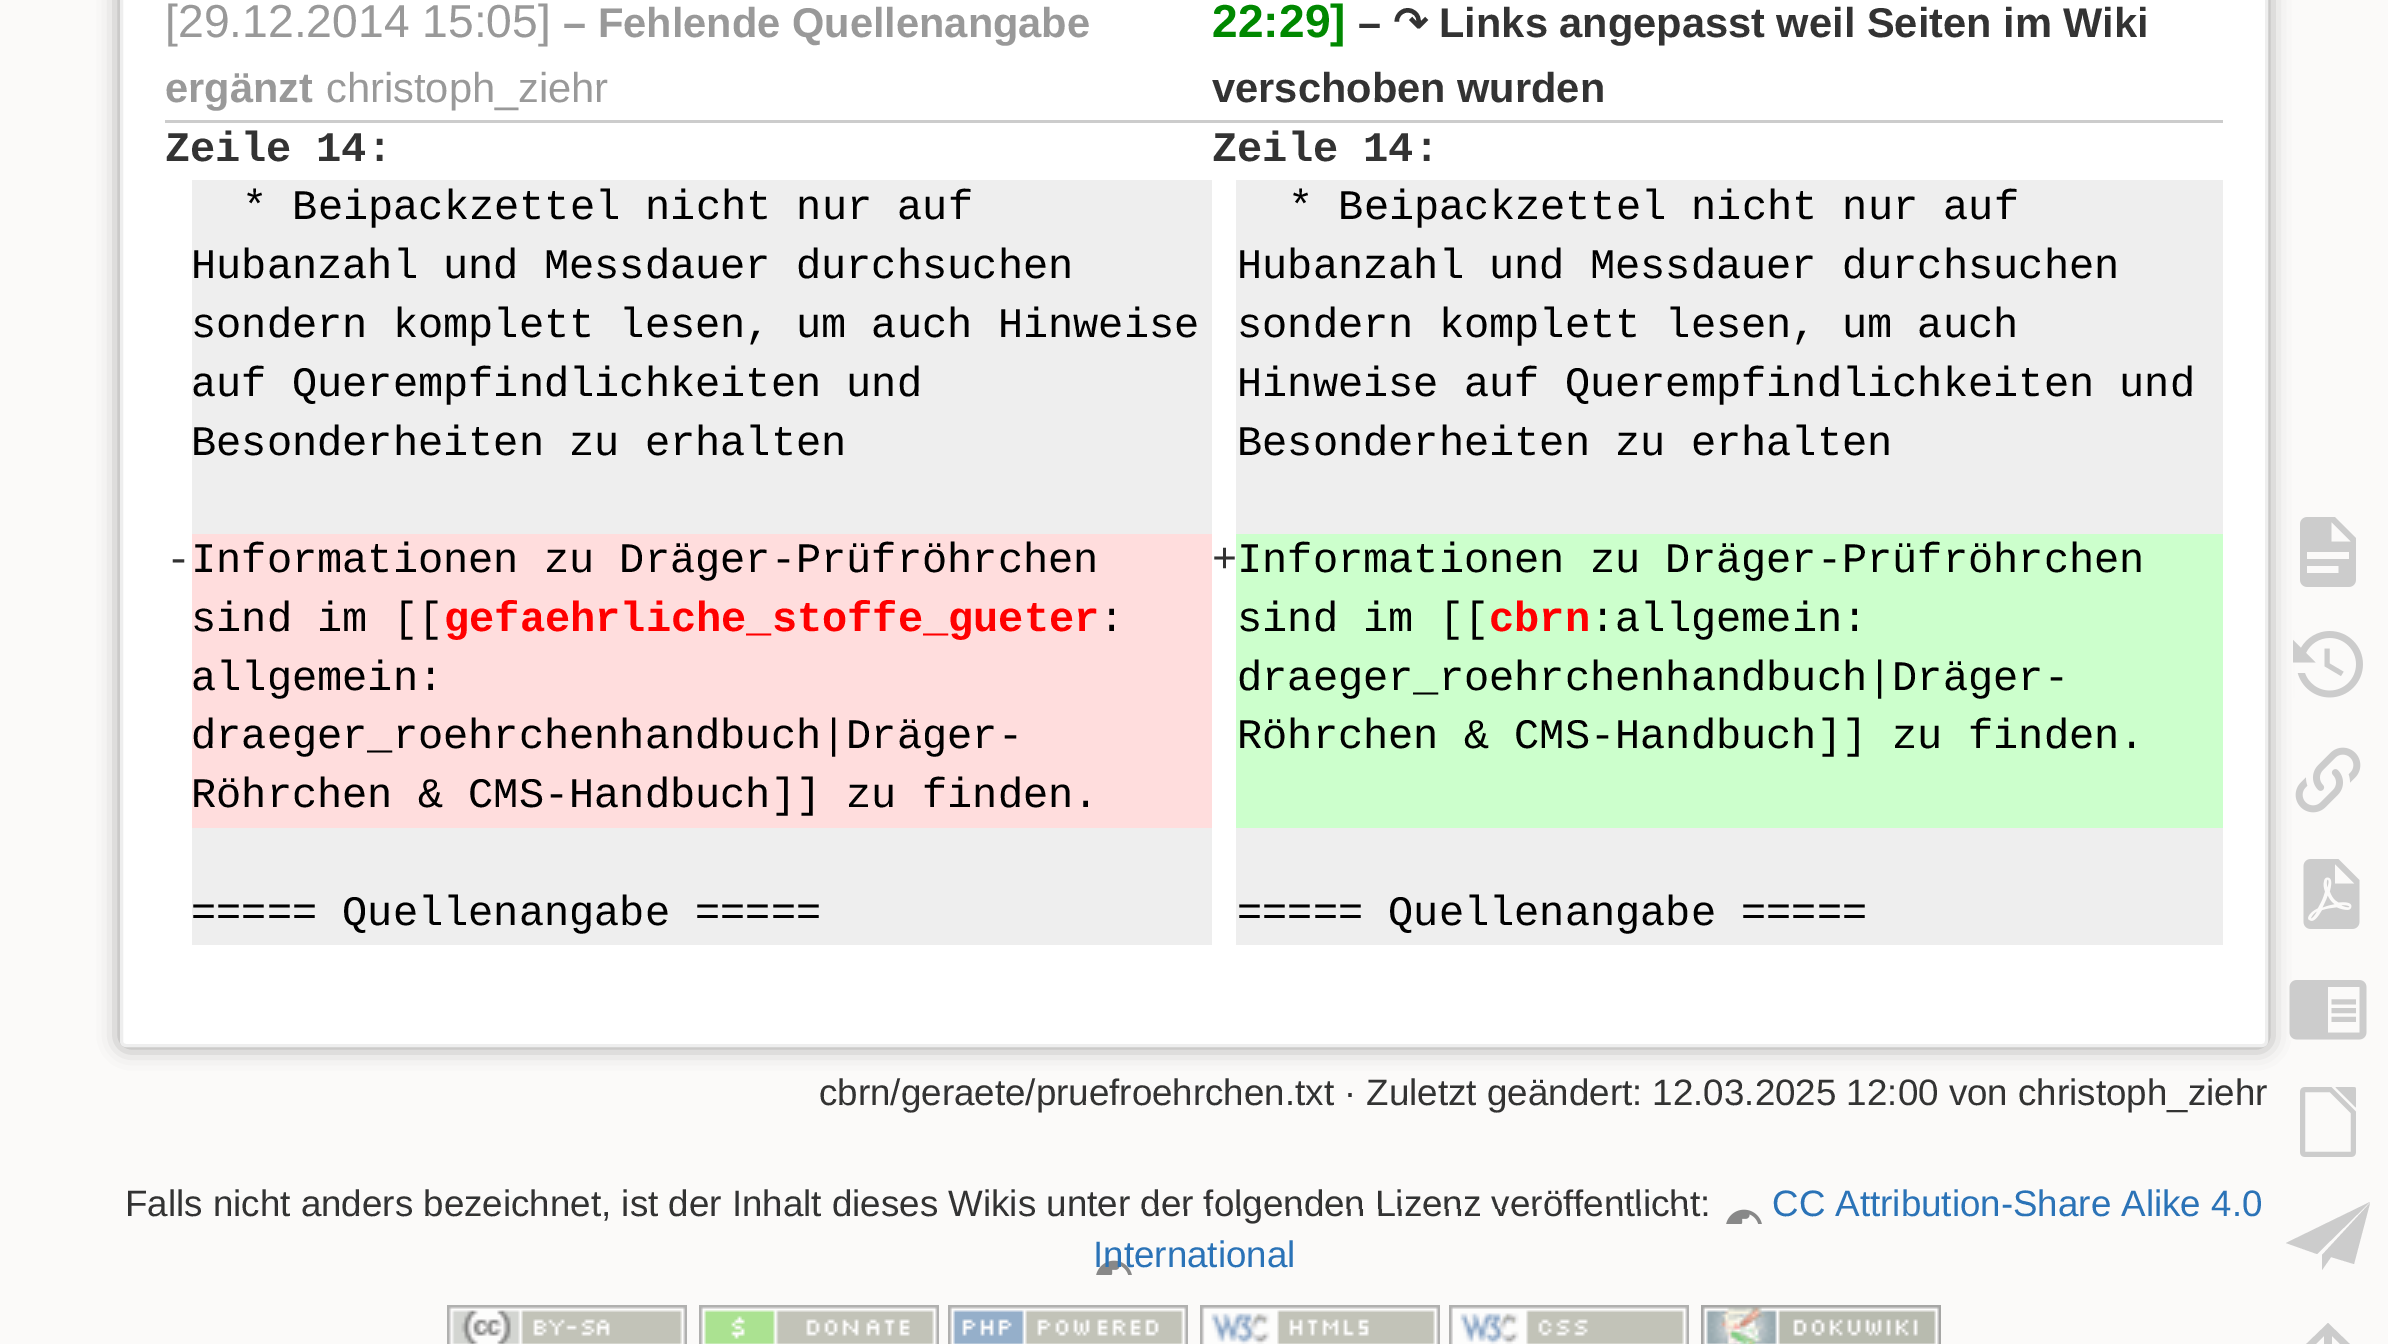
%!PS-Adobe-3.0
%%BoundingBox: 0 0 2388 1344
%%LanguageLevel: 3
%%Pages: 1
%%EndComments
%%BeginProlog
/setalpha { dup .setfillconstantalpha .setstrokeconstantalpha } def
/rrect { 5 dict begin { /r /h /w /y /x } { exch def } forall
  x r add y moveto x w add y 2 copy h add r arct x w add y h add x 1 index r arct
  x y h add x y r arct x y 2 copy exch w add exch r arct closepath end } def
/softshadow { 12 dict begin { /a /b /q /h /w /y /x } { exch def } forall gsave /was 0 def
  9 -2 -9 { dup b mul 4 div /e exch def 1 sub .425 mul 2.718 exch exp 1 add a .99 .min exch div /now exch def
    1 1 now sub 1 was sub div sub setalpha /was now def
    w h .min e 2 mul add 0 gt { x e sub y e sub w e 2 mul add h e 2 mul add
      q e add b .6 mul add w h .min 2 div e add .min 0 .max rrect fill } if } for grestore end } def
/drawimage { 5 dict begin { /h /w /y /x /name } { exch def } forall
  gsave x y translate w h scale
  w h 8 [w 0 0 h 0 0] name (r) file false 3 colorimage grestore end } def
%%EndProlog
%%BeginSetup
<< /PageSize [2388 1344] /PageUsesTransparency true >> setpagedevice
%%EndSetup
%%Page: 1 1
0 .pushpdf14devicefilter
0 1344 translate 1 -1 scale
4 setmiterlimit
0.984 0.98 0.976 setrgbcolor
0 0 2388 1344 rectfill
0.6 setgray
120 -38 2148 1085 6 10.5 1 softshadow
1 setgray
121.5 -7.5 2145 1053 4.5 rrect gsave fill grestore
0.933 setgray
3 setlinewidth
stroke
0.8 setgray
165 120 2058 3 rectfill
0.933 setgray
192 180 1020 354 rectfill
1236 180 987 354 rectfill
1 0.867 0.867 setrgbcolor
192 534 1020 294 rectfill
0.8 1 0.8 setrgbcolor
1236 534 987 294 rectfill
0.933 setgray
192 828 1020 117 rectfill
1236 828 987 117 rectfill
(images/1.raw) 2300 517 56 70 drawimage
(images/2.raw) 2293 631 70 67 drawimage
(images/3.raw) 2295 747 66 66 drawimage
(images/4.raw) 2303 859 57 70 drawimage
(images/5.raw) 2289 980 78 60 drawimage
(images/6.raw) 2300 1087 56 70 drawimage
0.8 setgray
newpath 2322 1255 moveto 2370 1203 lineto 2354 1264 lineto 2331 1257 lineto 2322 1270 lineto closepath 2370 1202 moveto 2317 1254 lineto 2286 1243 lineto closepath fill
newpath 2332 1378 moveto 2324 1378 lineto 2324 1336 lineto 2305 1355 lineto 2300 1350 lineto 2328 1323 lineto 2356 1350 lineto 2351 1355 lineto 2332 1336 lineto closepath fill
(images/8.raw) 447 1305 240 39 drawimage
(images/9.raw) 699 1305 240 39 drawimage
(images/10.raw) 948 1305 240 39 drawimage
(images/11.raw) 1200 1305 240 39 drawimage
(images/12.raw) 1449 1305 240 39 drawimage
(images/13.raw) 1701 1305 240 39 drawimage
/LiberationSans-Regular [46.25 0 0 -46.25 0 0] selectfont
0.6 setgray
165 37 moveto ([29.12.2014 15:05]) show
/LiberationSans-Bold [41.6 0 0 -41.6 0 0] selectfont
563 37 moveto (– Fehlende Quellenangabe) show
165 102 moveto (ergänzt) show
/LiberationSans-Regular [41.6 0 0 -41.6 0 0] selectfont
326 102 moveto (christoph_ziehr) show
/LiberationSans-Bold [46.25 0 0 -46.25 0 0] selectfont
0 0.533 0 setrgbcolor
1212 37 moveto (22:29]) show
/LiberationSans-Bold [41.6 0 0 -41.6 0 0] selectfont
0.2 setgray
1358 37 moveto (–) show
/DejaVuSans-Bold [41.6 0 0 -41.6 0 0] selectfont
1393 37 moveto (↷) show
/LiberationSans-Bold [41.6 0 0 -41.6 0 0] selectfont
1439 37 moveto (Links angepasst weil Seiten im Wiki) show
1212 102 moveto (verschoben wurden) show
/LiberationMono-Bold [42 0 0 -42 0 0] selectfont
165 161 moveto (Zeile 14:) show
1212 161 moveto (Zeile 14:) show
/LiberationMono-Regular [42 0 0 -42 0 0] selectfont
0 setgray
242 219 moveto (* Beipackzettel nicht nur auf) show
191 278 moveto (Hubanzahl und Messdauer durchsuchen) show
191 337 moveto (sondern komplett lesen, um auch Hinweise) show
191 396 moveto (auf Querempfindlichkeiten und) show
191 455 moveto (Besonderheiten zu erhalten) show
1288 219 moveto (* Beipackzettel nicht nur auf) show
1237 278 moveto (Hubanzahl und Messdauer durchsuchen) show
1237 337 moveto (sondern komplett lesen, um auch) show
1237 396 moveto (Hinweise auf Querempfindlichkeiten und) show
1237 455 moveto (Besonderheiten zu erhalten) show
0.2 setgray
166 572 moveto (-) show
0 setgray
191 572 moveto (Informationen zu Dräger-Prüfröhrchen) show
191 631 moveto (sind im [[) show
/LiberationMono-Bold [42 0 0 -42 0 0] selectfont
1 0 0 setrgbcolor
444 631 moveto (gefaehrliche_stoffe_gueter) show
/LiberationMono-Regular [42 0 0 -42 0 0] selectfont
0 setgray
1099 631 moveto (:) show
191 690 moveto (allgemein:) show
191 748 moveto (draeger_roehrchenhandbuch|Dräger-) show
191 807 moveto (Röhrchen & CMS-Handbuch]] zu finden.) show
0.2 setgray
1212 572 moveto (+) show
0 setgray
1237 572 moveto (Informationen zu Dräger-Prüfröhrchen) show
1237 631 moveto (sind im [[) show
/LiberationMono-Bold [42 0 0 -42 0 0] selectfont
1 0 0 setrgbcolor
1489 631 moveto (cbrn) show
/LiberationMono-Regular [42 0 0 -42 0 0] selectfont
0 setgray
1590 631 moveto (:allgemein:) show
1237 690 moveto (draeger_roehrchenhandbuch|Dräger-) show
1237 748 moveto (Röhrchen & CMS-Handbuch]] zu finden.) show
191 925 moveto (===== Quellenangabe =====) show
1237 925 moveto (===== Quellenangabe =====) show
/LiberationSans-Regular [36.75 0 0 -36.75 0 0] selectfont
0.2 setgray
819 1105 moveto (cbrn/geraete/pruefroehrchen.txt · Zuletzt geändert: 12.03.2025 12:00 von christoph_ziehr) show
125 1216 moveto (Falls nicht anders bezeichnet, ist der Inhalt dieses Wikis unter der folgenden Lizenz veröffentlicht:) show
0.169 0.451 0.718 setrgbcolor
1772 1216 moveto (CC Attribution-Share Alike 4.0) show
(images/7.raw) 1096 1209 666 66 drawimage
1093 1267 moveto (International) show
.poppdf14devicefilter showpage
%%EOF
